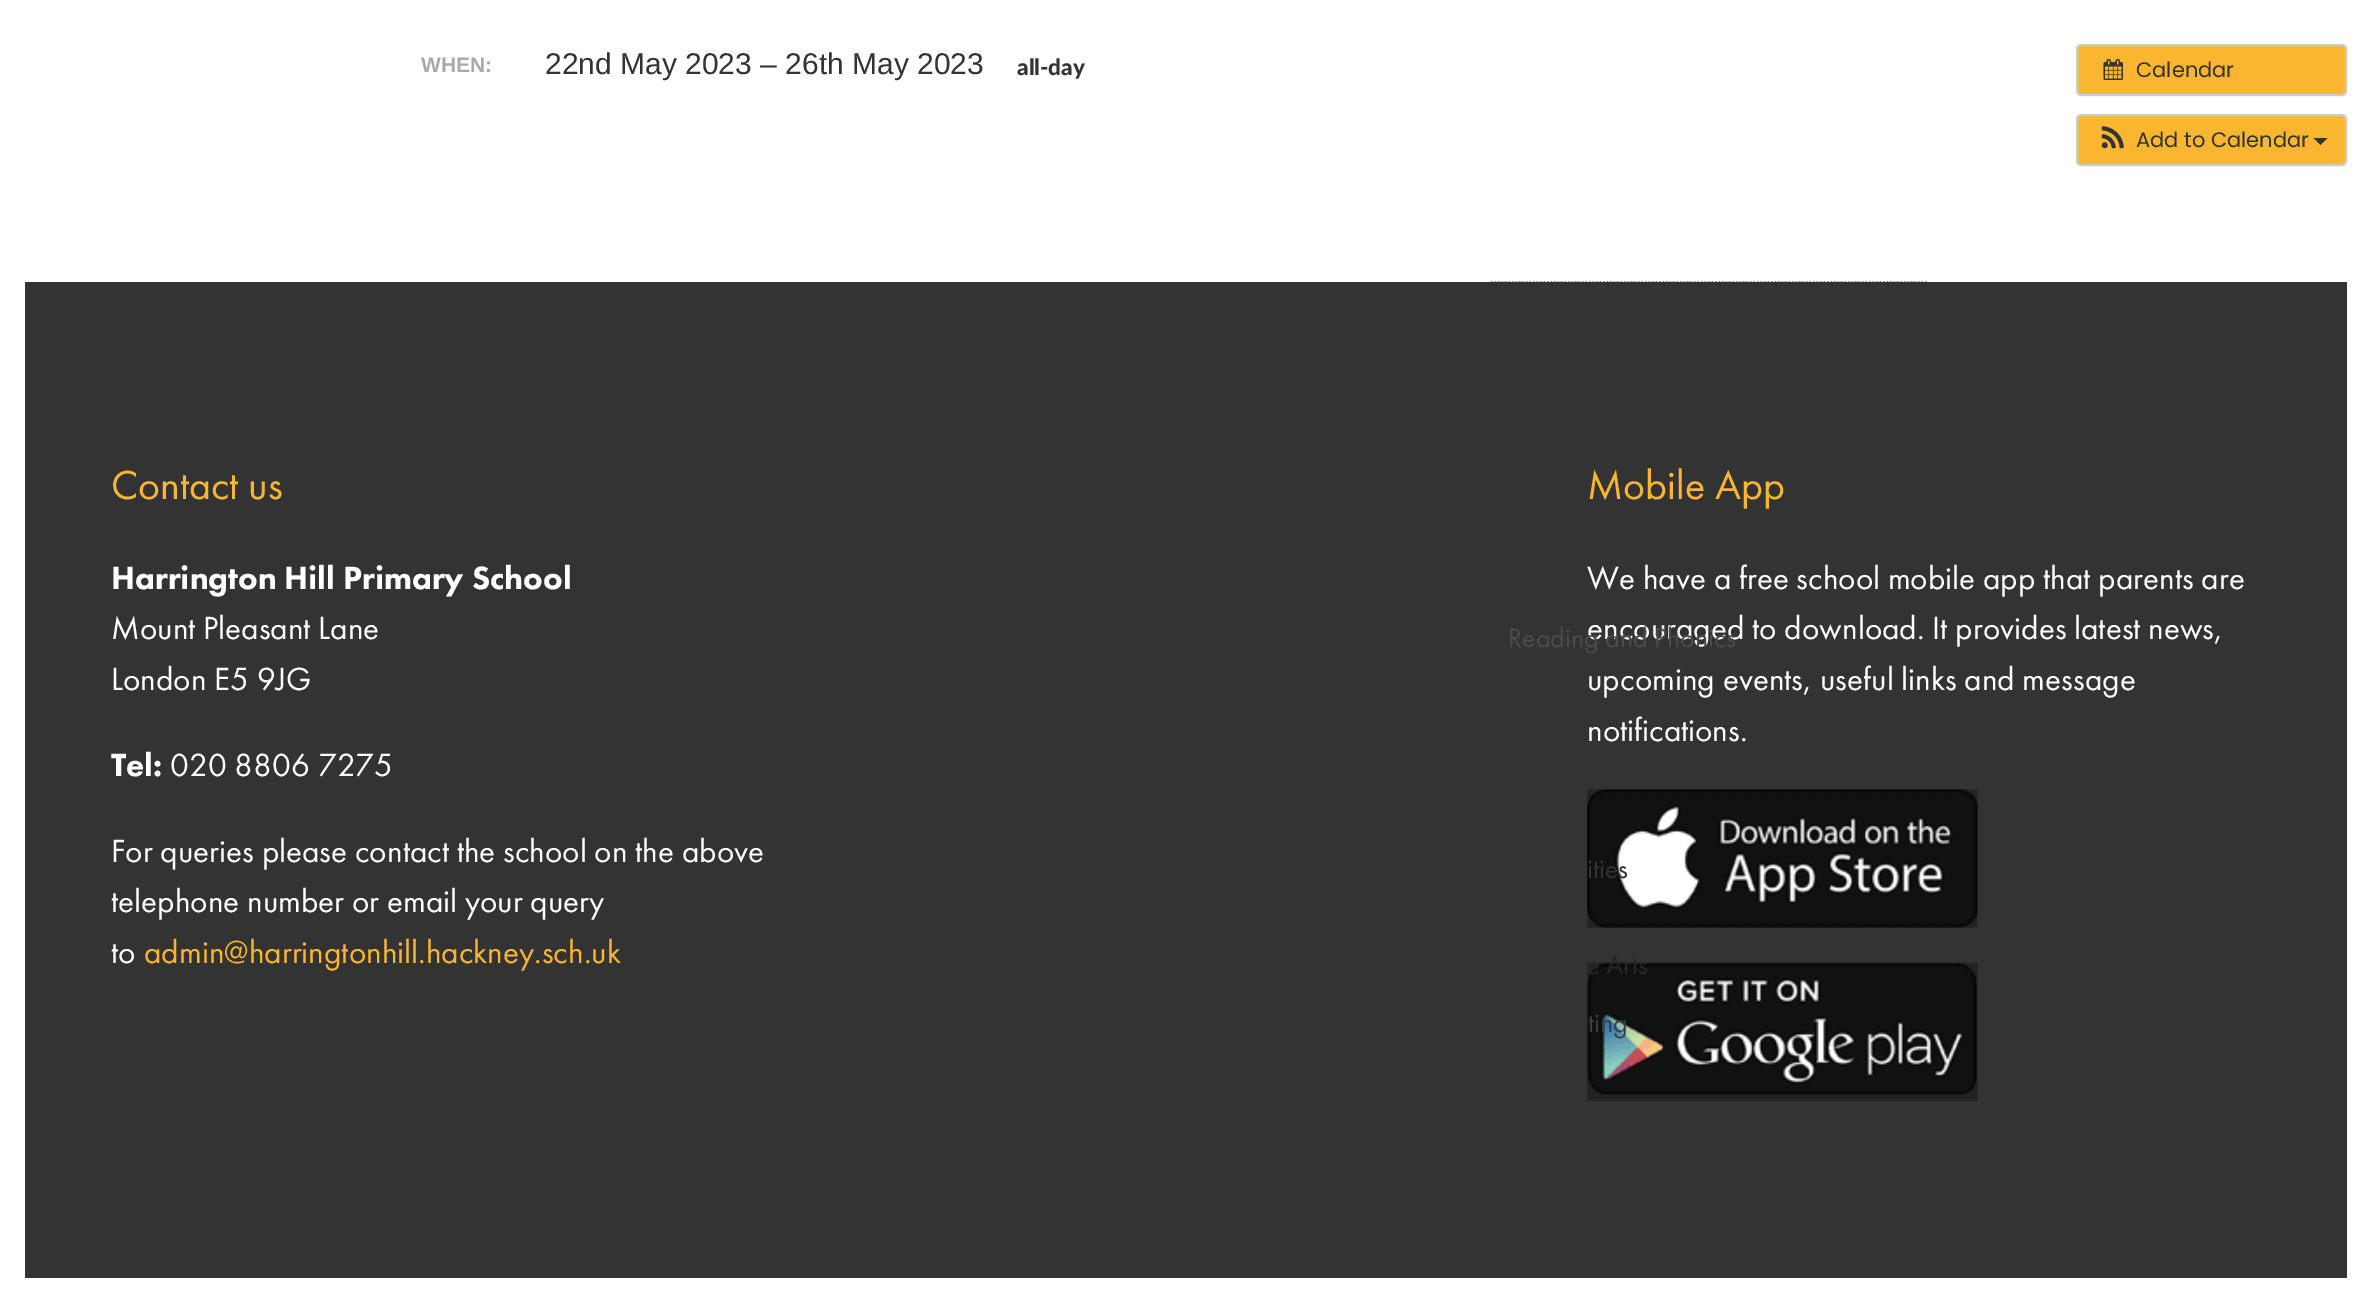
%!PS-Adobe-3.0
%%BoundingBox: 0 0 2371 1301
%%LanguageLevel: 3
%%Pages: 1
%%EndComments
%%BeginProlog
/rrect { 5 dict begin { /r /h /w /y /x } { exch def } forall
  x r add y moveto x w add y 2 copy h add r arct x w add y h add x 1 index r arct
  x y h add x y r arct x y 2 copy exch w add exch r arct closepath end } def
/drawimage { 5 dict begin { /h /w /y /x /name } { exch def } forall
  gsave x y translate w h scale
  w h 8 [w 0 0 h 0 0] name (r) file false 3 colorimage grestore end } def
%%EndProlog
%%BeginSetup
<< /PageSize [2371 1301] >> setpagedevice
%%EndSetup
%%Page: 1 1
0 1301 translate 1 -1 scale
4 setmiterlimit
1 setgray
0 0 2371 1301 rectfill
0.98 0.714 0.188 setrgbcolor
2077 45 269 50 4 rrect gsave fill grestore
0.8 setgray
2 setlinewidth
stroke
(images/1.raw) 2103 59 20 21 drawimage
0.98 0.714 0.188 setrgbcolor
2077 115 269 50 4 rrect gsave fill grestore
0.8 setgray
stroke
(images/2.raw) 2101 126 23 23 drawimage
0.2 setgray
newpath 2313.5 138 moveto 2327.5 138 lineto 2320.5 145 lineto closepath fill
25 282 2322 996 rectfill
(images/3.raw) 1587 789 391 139 drawimage
(images/4.raw) 1587 962 391 139 drawimage
1.8 setlinewidth
[1.75 1.75] 0 setdash
newpath 1491 282.5 moveto 1927 282.5 lineto stroke
/LiberationSans-Bold [21 0 0 -21 0 0] selectfont
0.667 setgray
421 72 moveto (WHEN:) show
/LiberationSans-Regular [30 0 0 -30 0 0] selectfont
0.2 setgray
545 74 moveto (22nd May 2023 – 26th May 2023) show
/Lato-Black [22.5 0 0 -22.5 0 0] selectfont
1017 75 moveto (all-day) show
/Poppins-Regular [21 0 0 -21 0 0] selectfont
2136 77 moveto (Calendar) show
2136 147 moveto (Add to Calendar) show
/FuturaPT-Regular [42 0 0 -42 0 0] selectfont
0.98 0.714 0.188 setrgbcolor
111 499 moveto (Contact us) show
/FuturaPT-Black [33.25 0 0 -33.25 0 0] selectfont
1 setgray
111 589 moveto (Harrington Hill Primary School) show
/FuturaPT-Regular [33.25 0 0 -33.25 0 0] selectfont
111 639 moveto (Mount Pleasant Lane) show
111 690 moveto (London E5 9JG) show
/FuturaPT-Black [33.25 0 0 -33.25 0 0] selectfont
111 776 moveto (Tel:) show
/FuturaPT-Regular [33.25 0 0 -33.25 0 0] selectfont
170 776 moveto (020 8806 7275) show
111 862 moveto (For queries please contact the school on the above) show
111 912 moveto (telephone number or email your query) show
111 963 moveto (to) show
0.98 0.714 0.188 setrgbcolor
144 963 moveto (admin@harringtonhill.hackney.sch.uk) show
/FuturaPT-Regular [42 0 0 -42 0 0] selectfont
1587 499 moveto (Mobile App) show
/FuturaPT-Regular [33.25 0 0 -33.25 0 0] selectfont
1 setgray
1587 589 moveto (We have a free school mobile app that parents are) show
1587 639 moveto (encouraged to download. It provides latest news,) show
1587 690 moveto (upcoming events, useful links and message) show
1587 741 moveto (notifications.) show
0.2 setgray
newpath 1185 590.5 moveto 1620.5 590.5 lineto stroke
/FuturaPT-Regular [28 0 0 -28 0 0] selectfont
0.298 setgray
1508 647 moveto (Reading and Phonics) show
0.2 setgray
1587 878 moveto (ities) show
0.153 setgray
1586 974 moveto (e Arts) show
0.208 0.251 0.267 setrgbcolor
1588 1032 moveto (ting) show
showpage
%%EOF
